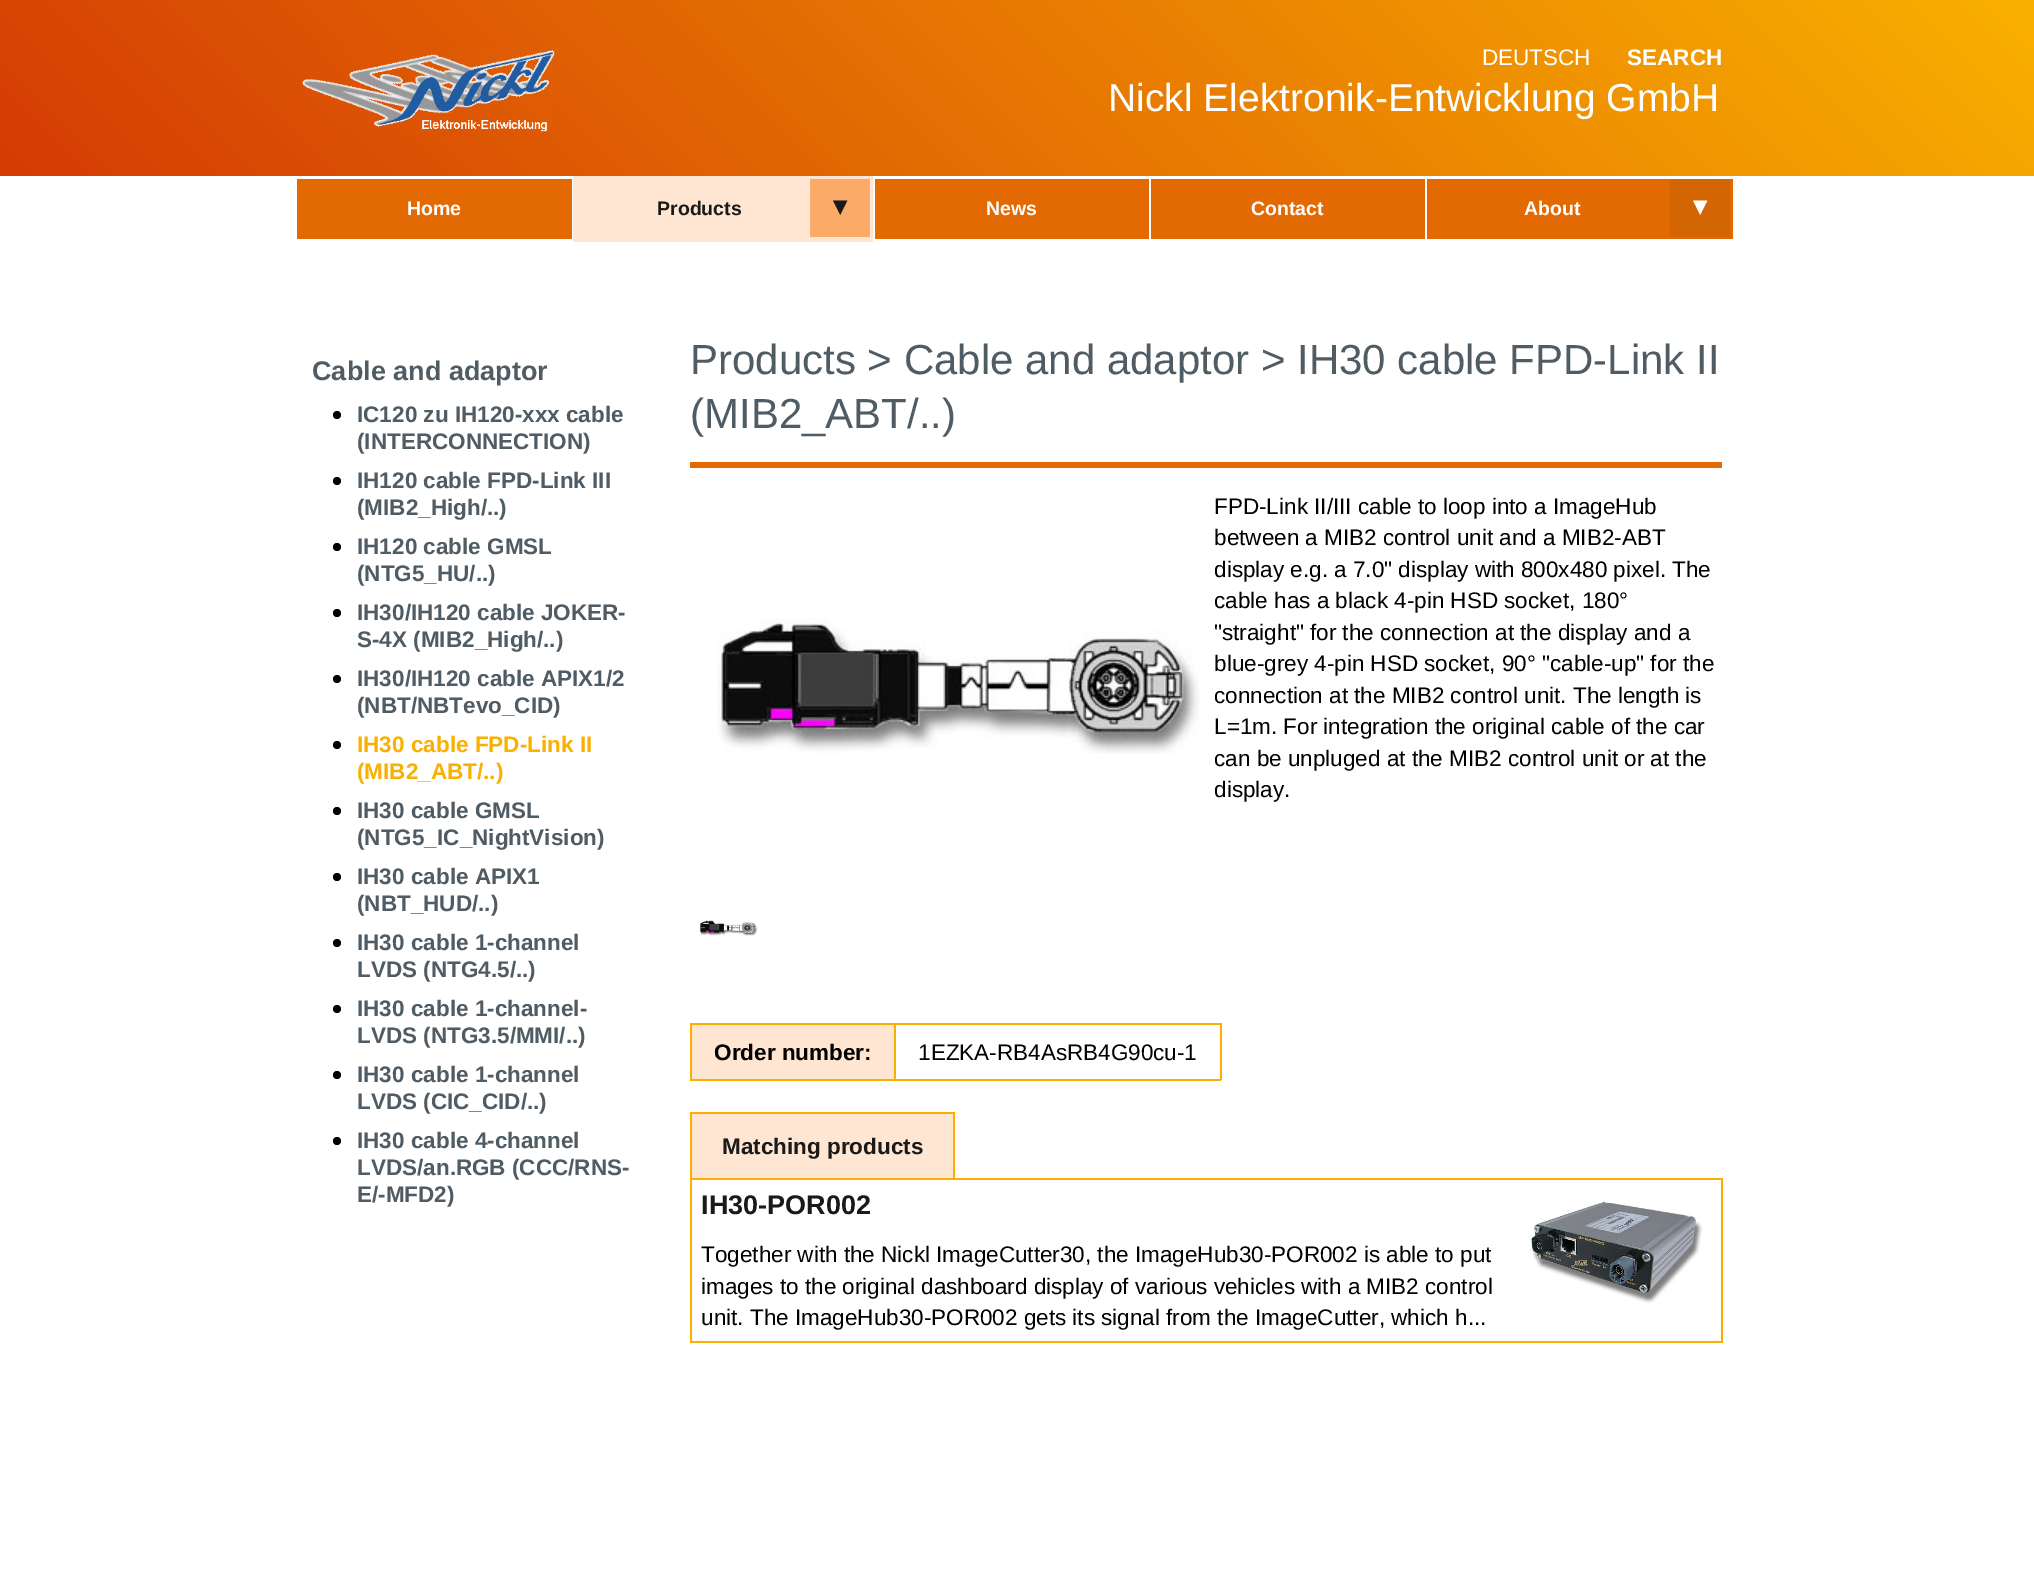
%!PS-Adobe-3.0
%%BoundingBox: 0 0 2034 1582
%%LanguageLevel: 3
%%Pages: 1
%%EndComments
%%BeginProlog
/drawimage { 5 dict begin { /h /w /y /x /name } { exch def } forall
  gsave x y translate w h scale
  w h 8 [w 0 0 h 0 0] name (r) file false 3 colorimage grestore end } def
%%EndProlog
%%BeginSetup
<< /PageSize [2034 1582] >> setpagedevice
%%EndSetup
%%Page: 1 1
0 1582 translate 1 -1 scale
4 setmiterlimit
1 setgray
0 0 2034 1582 rectfill
gsave newpath 0 0 moveto 2034 0 lineto 2034 176 lineto 0 176 lineto closepath clip newpath
<< /ShadingType 2 /ColorSpace /DeviceRGB /Coords [465 640 1569 -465] /Extend [true true] /Function << /FunctionType 2 /Domain [0 1] /C0 [0.835 0.231 0.02] /C1 [0.976 0.69 0] /N 1 >> >> shfill grestore
(images/1.raw) 302 50 253 82 drawimage
0.89 0.416 0.012 setrgbcolor
297 179 275 60 rectfill
0.996 0.902 0.824 setrgbcolor
573 176 300 66 rectfill
0.984 0.667 0.408 setrgbcolor
810 179 60 58 rectfill
0.89 0.416 0.012 setrgbcolor
875 179 274 60 rectfill
1151 179 274 60 rectfill
1427 179 306 60 rectfill
0.827 0.4 0.012 setrgbcolor
1670 179 60 58 rectfill
0 setgray
newpath 337 415 4 0 360 arc closepath fill
newpath 337 481 4 0 360 arc closepath fill
newpath 337 547 4 0 360 arc closepath fill
newpath 337 613 4 0 360 arc closepath fill
newpath 337 679 4 0 360 arc closepath fill
newpath 337 745 4 0 360 arc closepath fill
newpath 337 811 4 0 360 arc closepath fill
newpath 337 877 4 0 360 arc closepath fill
newpath 337 943 4 0 360 arc closepath fill
newpath 337 1009 4 0 360 arc closepath fill
newpath 337 1075 4 0 360 arc closepath fill
newpath 337 1141 4 0 360 arc closepath fill
0.89 0.416 0.012 setrgbcolor
690 462 1032 6 rectfill
(images/2.raw) 717 618 483 136 drawimage
(images/3.raw) 699 920 59 16 drawimage
0.976 0.69 0 setrgbcolor
690 1023 531 2 rectfill
1220 1023 2 57 rectfill
690 1079 531 2 rectfill
690 1023 2 57 rectfill
0.996 0.902 0.824 setrgbcolor
692 1025 202 54 rectfill
0.976 0.69 0 setrgbcolor
894 1023 2 57 rectfill
0.996 0.902 0.824 setrgbcolor
692 1114 261 64 rectfill
0.976 0.69 0 setrgbcolor
690 1112 264 2 rectfill
953 1112 2 66 rectfill
690 1112 2 66 rectfill
690 1178 1032 2 rectfill
1721 1178 2 165 rectfill
690 1341 1032 2 rectfill
690 1178 2 165 rectfill
(images/4.raw) 1530 1200 173 103 drawimage
/LiberationSans-Regular [22.5 0 0 -22.5 0 0] selectfont
1 setgray
1482 65 moveto (DEUTSCH) show
/LiberationSans-Bold [22.5 0 0 -22.5 0 0] selectfont
1627 65 moveto (SEARCH) show
/LiberationSans-Regular [39 0 0 -39 0 0] selectfont
1108 111 moveto (Nickl Elektronik-Entwicklung GmbH) show
/LiberationSans-Bold [19.5 0 0 -19.5 0 0] selectfont
407 215 moveto (Home) show
0.102 setgray
657 215 moveto (Products) show
/DejaVuSans-Bold [27 0 0 -27 0 0] selectfont
833 215 moveto (▾) show
/LiberationSans-Bold [19.5 0 0 -19.5 0 0] selectfont
1 setgray
986 215 moveto (News) show
1251 215 moveto (Contact) show
1524 215 moveto (About) show
/DejaVuSans-Bold [27 0 0 -27 0 0] selectfont
1693 215 moveto (▾) show
/LiberationSans-Bold [27 0 0 -27 0 0] selectfont
0.314 0.361 0.392 setrgbcolor
312 380 moveto (Cable and adaptor) show
/LiberationSans-Bold [22.5 0 0 -22.5 0 0] selectfont
357 422 moveto (IC120 zu IH120-xxx cable) show
357 449 moveto (\(INTERCONNECTION\)) show
357 488 moveto (IH120 cable FPD-Link III) show
357 515 moveto (\(MIB2_High/..\)) show
357 554 moveto (IH120 cable GMSL) show
357 581 moveto (\(NTG5_HU/..\)) show
357 620 moveto (IH30/IH120 cable JOKER-) show
357 647 moveto (S-4X \(MIB2_High/..\)) show
357 686 moveto (IH30/IH120 cable APIX1/2) show
357 713 moveto (\(NBT/NBTevo_CID\)) show
0.976 0.69 0 setrgbcolor
357 752 moveto (IH30 cable FPD-Link II) show
357 779 moveto (\(MIB2_ABT/..\)) show
0.314 0.361 0.392 setrgbcolor
357 818 moveto (IH30 cable GMSL) show
357 845 moveto (\(NTG5_IC_NightVision\)) show
357 884 moveto (IH30 cable APIX1) show
357 911 moveto (\(NBT_HUD/..\)) show
357 950 moveto (IH30 cable 1-channel) show
357 977 moveto (LVDS \(NTG4.5/..\)) show
357 1016 moveto (IH30 cable 1-channel-) show
357 1043 moveto (LVDS \(NTG3.5/MMI/..\)) show
357 1082 moveto (IH30 cable 1-channel) show
357 1109 moveto (LVDS \(CIC_CID/..\)) show
357 1148 moveto (IH30 cable 4-channel) show
357 1175 moveto (LVDS/an.RGB \(CCC/RNS-) show
357 1202 moveto (E/-MFD2\)) show
/LiberationSans-Regular [42 0 0 -42 0 0] selectfont
690 374 moveto (Products > Cable and adaptor > IH30 cable FPD-Link II) show
690 428 moveto (\(MIB2_ABT/..\)) show
/LiberationSans-Regular [22.5 0 0 -22.5 0 0] selectfont
0 setgray
1214 514 moveto (FPD-Link II/III cable to loop into a ImageHub) show
1214 545 moveto (between a MIB2 control unit and a MIB2-ABT) show
1214 577 moveto (display e.g. a 7.0" display with 800x480 pixel. The) show
1214 608 moveto (cable has a black 4-pin HSD socket, 180°) show
1214 640 moveto ("straight" for the connection at the display and a) show
1214 671 moveto (blue-grey 4-pin HSD socket, 90° "cable-up" for the) show
1214 703 moveto (connection at the MIB2 control unit. The length is) show
1214 734 moveto (L=1m. For integration the original cable of the car) show
1214 766 moveto (can be unpluged at the MIB2 control unit or at the) show
1214 797 moveto (display.) show
/LiberationSans-Bold [22.5 0 0 -22.5 0 0] selectfont
714 1060 moveto (Order number:) show
/LiberationSans-Regular [22.5 0 0 -22.5 0 0] selectfont
918 1060 moveto (1EZKA-RB4AsRB4G90cu-1) show
/LiberationSans-Bold [22.5 0 0 -22.5 0 0] selectfont
0.102 setgray
722 1154 moveto (Matching products) show
/LiberationSans-Bold [27 0 0 -27 0 0] selectfont
701 1214 moveto (IH30-POR002) show
/LiberationSans-Regular [22.5 0 0 -22.5 0 0] selectfont
0 setgray
701 1262 moveto (Together with the Nickl ImageCutter30, the ImageHub30-POR002 is able to put) show
701 1294 moveto (images to the original dashboard display of various vehicles with a MIB2 control) show
701 1325 moveto (unit. The ImageHub30-POR002 gets its signal from the ImageCutter, which h...) show
showpage
%%EOF
